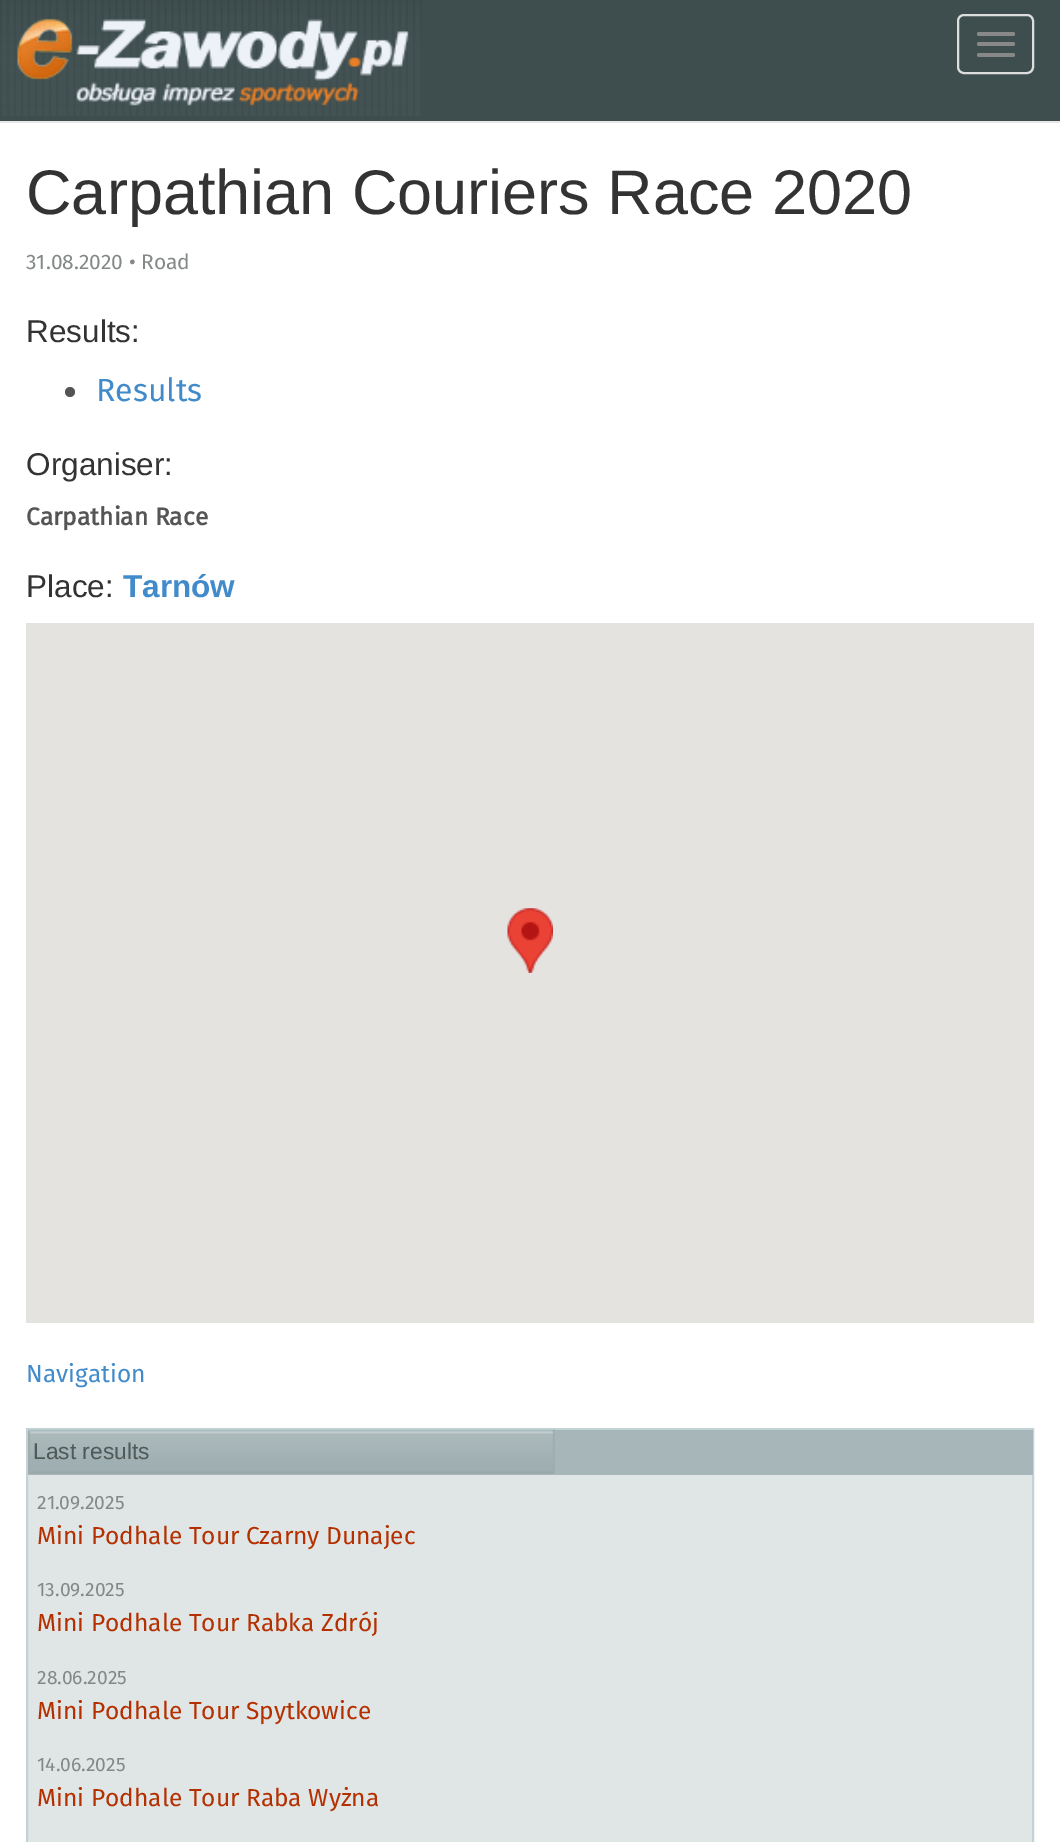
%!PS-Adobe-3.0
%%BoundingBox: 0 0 1060 1842
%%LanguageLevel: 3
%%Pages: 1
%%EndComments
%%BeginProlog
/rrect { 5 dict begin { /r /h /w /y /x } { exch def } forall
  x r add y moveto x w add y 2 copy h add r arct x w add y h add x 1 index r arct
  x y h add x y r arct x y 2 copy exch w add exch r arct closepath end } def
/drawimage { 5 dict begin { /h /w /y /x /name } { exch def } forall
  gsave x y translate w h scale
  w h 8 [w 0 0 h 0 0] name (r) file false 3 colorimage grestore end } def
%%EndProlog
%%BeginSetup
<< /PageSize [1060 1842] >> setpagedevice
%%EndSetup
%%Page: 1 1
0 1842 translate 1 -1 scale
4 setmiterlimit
1 setgray
0 0 1060 1842 rectfill
0.243 0.302 0.306 setrgbcolor
0 0 1060 121 rectfill
0.906 setgray
0 121 1060 2 rectfill
(images/1.raw) 0 0 422 116 drawimage
0.867 setgray
2 setlinewidth
958 15 75 58 6 rrect stroke
0.533 setgray
977 32 38 4 2 rrect fill
977 42 38 4 2 rrect fill
977 53 38 4 2 rrect fill
0.333 setgray
newpath 70 392 5 0 360 arc closepath fill
0.898 0.89 0.875 setrgbcolor
26 623 1008 700 rectfill
(images/2.raw) 507 908 46 65 drawimage
0.878 0.898 0.898 setrgbcolor
28 1475 1004 367 rectfill
0.765 0.824 0.831 setrgbcolor
27 1429 1006 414 rectstroke
0.655 0.714 0.722 setrgbcolor
28 1430 1005 45 rectfill
(images/3.raw) 28 1429 527 45 drawimage
/LiberationSans-Regular [63 0 0 -63 0 0] selectfont
0.2 setgray
26 214 moveto (Carpathian Couriers Race 2020) show
/FiraSans-Regular [21 0 0 -21 0 0] selectfont
0.514 0.533 0.533 setrgbcolor
26 269 moveto (31.08.2020 • Road) show
/LiberationSans-Regular [31.5 0 0 -31.5 0 0] selectfont
0.2 setgray
26 342 moveto (Results:) show
/FiraSans-Regular [32 0 0 -32 0 0] selectfont
0.259 0.545 0.792 setrgbcolor
96 401 moveto (Results) show
/LiberationSans-Regular [31.5 0 0 -31.5 0 0] selectfont
0.2 setgray
26 475 moveto (Organiser:) show
/FiraSans-Bold [24.5 0 0 -24.5 0 0] selectfont
0.333 setgray
26 525 moveto (Carpathian Race) show
/LiberationSans-Regular [31.5 0 0 -31.5 0 0] selectfont
0.2 setgray
26 597 moveto (Place:) show
/LiberationSans-Bold [31.5 0 0 -31.5 0 0] selectfont
0.259 0.545 0.792 setrgbcolor
123 597 moveto (Tarnów) show
/FiraSans-Regular [24.5 0 0 -24.5 0 0] selectfont
26 1382 moveto (Navigation) show
/LiberationSans-Regular [22.75 0 0 -22.75 0 0] selectfont
0.31 0.349 0.349 setrgbcolor
33 1459 moveto (Last results) show
/FiraSans-Regular [19.25 0 0 -19.25 0 0] selectfont
0.514 0.533 0.533 setrgbcolor
37 1509 moveto (21.09.2025) show
/FiraSans-Regular [24.5 0 0 -24.5 0 0] selectfont
0.71 0.188 0 setrgbcolor
37 1544 moveto (Mini Podhale Tour Czarny Dunajec) show
/FiraSans-Regular [19.25 0 0 -19.25 0 0] selectfont
0.514 0.533 0.533 setrgbcolor
37 1596 moveto (13.09.2025) show
/FiraSans-Regular [24.5 0 0 -24.5 0 0] selectfont
0.71 0.188 0 setrgbcolor
37 1631 moveto (Mini Podhale Tour Rabka Zdrój) show
/FiraSans-Regular [19.25 0 0 -19.25 0 0] selectfont
0.514 0.533 0.533 setrgbcolor
37 1684 moveto (28.06.2025) show
/FiraSans-Regular [24.5 0 0 -24.5 0 0] selectfont
0.71 0.188 0 setrgbcolor
37 1719 moveto (Mini Podhale Tour Spytkowice) show
/FiraSans-Regular [19.25 0 0 -19.25 0 0] selectfont
0.514 0.533 0.533 setrgbcolor
37 1771 moveto (14.06.2025) show
/FiraSans-Regular [24.5 0 0 -24.5 0 0] selectfont
0.71 0.188 0 setrgbcolor
37 1806 moveto (Mini Podhale Tour Raba Wyżna) show
showpage
%%EOF
